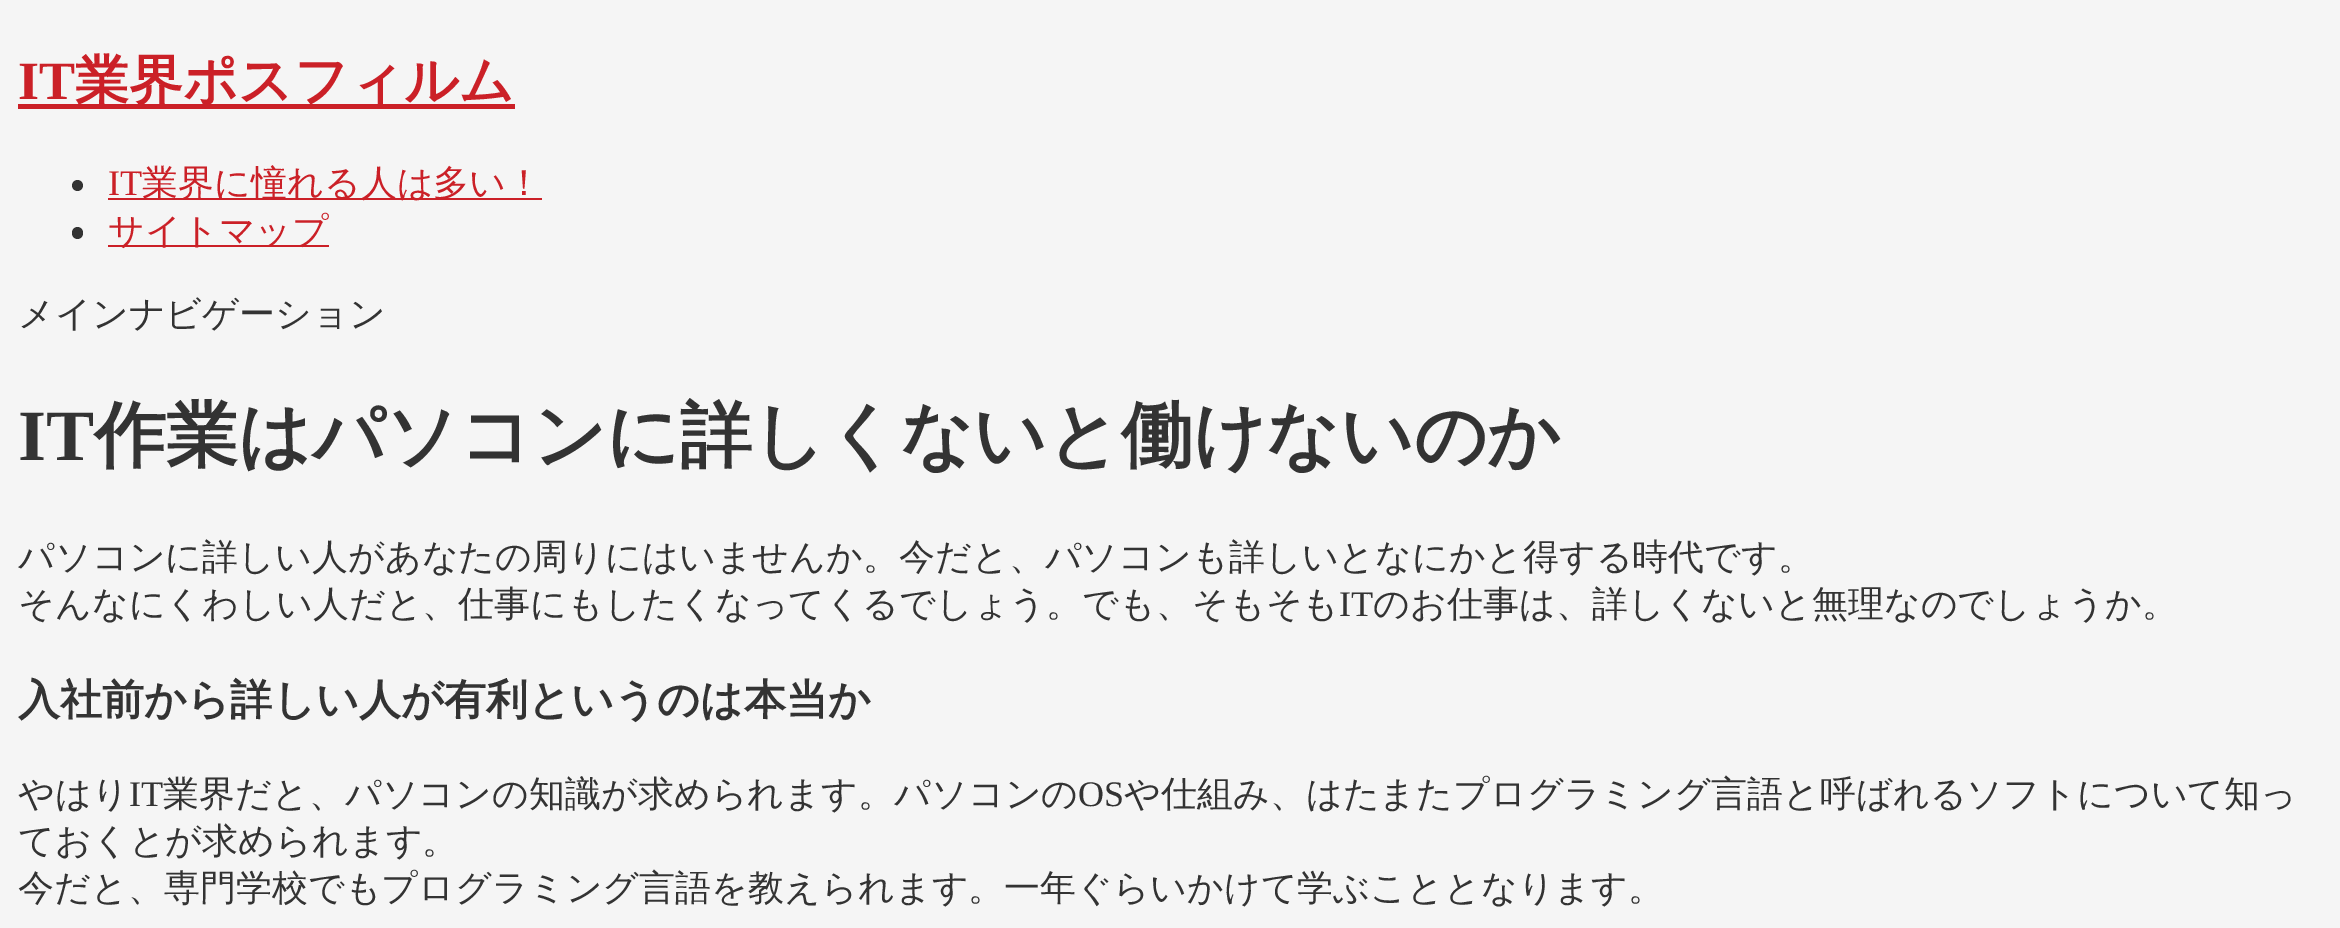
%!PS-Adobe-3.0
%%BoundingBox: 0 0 2340 928
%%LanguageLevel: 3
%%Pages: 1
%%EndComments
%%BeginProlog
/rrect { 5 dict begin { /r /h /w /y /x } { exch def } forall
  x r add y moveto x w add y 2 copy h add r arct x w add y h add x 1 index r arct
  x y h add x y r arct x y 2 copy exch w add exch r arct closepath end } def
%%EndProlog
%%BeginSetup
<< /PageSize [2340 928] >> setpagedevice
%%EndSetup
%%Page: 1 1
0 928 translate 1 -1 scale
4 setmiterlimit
0.961 setgray
0 0 2340 928 rectfill
0.796 0.125 0.153 setrgbcolor
18 104 497 5 rectfill
0.2 setgray
newpath 77.5 185.5 5.5 0 360 arc closepath fill
0.796 0.125 0.153 setrgbcolor
108 198 434 2 rectfill
0.2 setgray
72 227 11 12 5.5 rrect fill
0.796 0.125 0.153 setrgbcolor
108 245 221 2 rectfill
/LiberationSerif-Bold [54 0 0 -54 0 0] selectfont
18 99 moveto (IT) show
/WenQuanYiZenHei-Bold [54 0 0 -54 0 0] selectfont
75 99 moveto (業界ポスフィルム) show
/LiberationSerif-Regular [36 0 0 -36 0 0] selectfont
108 195 moveto (IT) show
/WenQuanYiZenHei-Medium [36 0 0 -36 0 0] selectfont
142 195 moveto (業界に憧れる人は多い！) show
108 243 moveto (サイトマップ) show
0.2 setgray
18 326 moveto (メインナビゲーション) show
/LiberationSerif-Bold [72 0 0 -72 0 0] selectfont
18 460 moveto (IT) show
/WenQuanYiZenHei-Bold [72 0 0 -72 0 0] selectfont
94 460 moveto (作業はパソコンに詳しくないと働けないのか) show
/WenQuanYiZenHei-Medium [36 0 0 -36 0 0] selectfont
18 569 moveto (パソコンに詳しい人があなたの周りにはいませんか。今だと、パソコンも詳しいとなにかと得する時代です。) show
18 616 moveto (そんなにくわしい人だと、仕事にもしたくなってくるでしょう。でも、そもそも) show
/LiberationSerif-Regular [36 0 0 -36 0 0] selectfont
1339 616 moveto (IT) show
/WenQuanYiZenHei-Medium [36 0 0 -36 0 0] selectfont
1373 616 moveto (のお仕事は、詳しくないと無理なのでしょうか。) show
/WenQuanYiZenHei-Bold [42.1 0 0 -42.1 0 0] selectfont
18 714 moveto (入社前から詳しい人が有利というのは本当か) show
/WenQuanYiZenHei-Medium [36 0 0 -36 0 0] selectfont
18 806 moveto (やはり) show
/LiberationSerif-Regular [36 0 0 -36 0 0] selectfont
129 806 moveto (IT) show
/WenQuanYiZenHei-Medium [36 0 0 -36 0 0] selectfont
163 806 moveto (業界だと、パソコンの知識が求められます。パソコンの) show
/LiberationSerif-Regular [36 0 0 -36 0 0] selectfont
1078 806 moveto (OS) show
/WenQuanYiZenHei-Medium [36 0 0 -36 0 0] selectfont
1124 806 moveto (や仕組み、はたまたプログラミング言語と呼ばれるソフトについて知っ) show
18 853 moveto (ておくとが求められます。) show
18 900 moveto (今だと、専門学校でもプログラミング言語を教えられます。一年ぐらいかけて学ぶこととなります。) show
showpage
%%EOF
